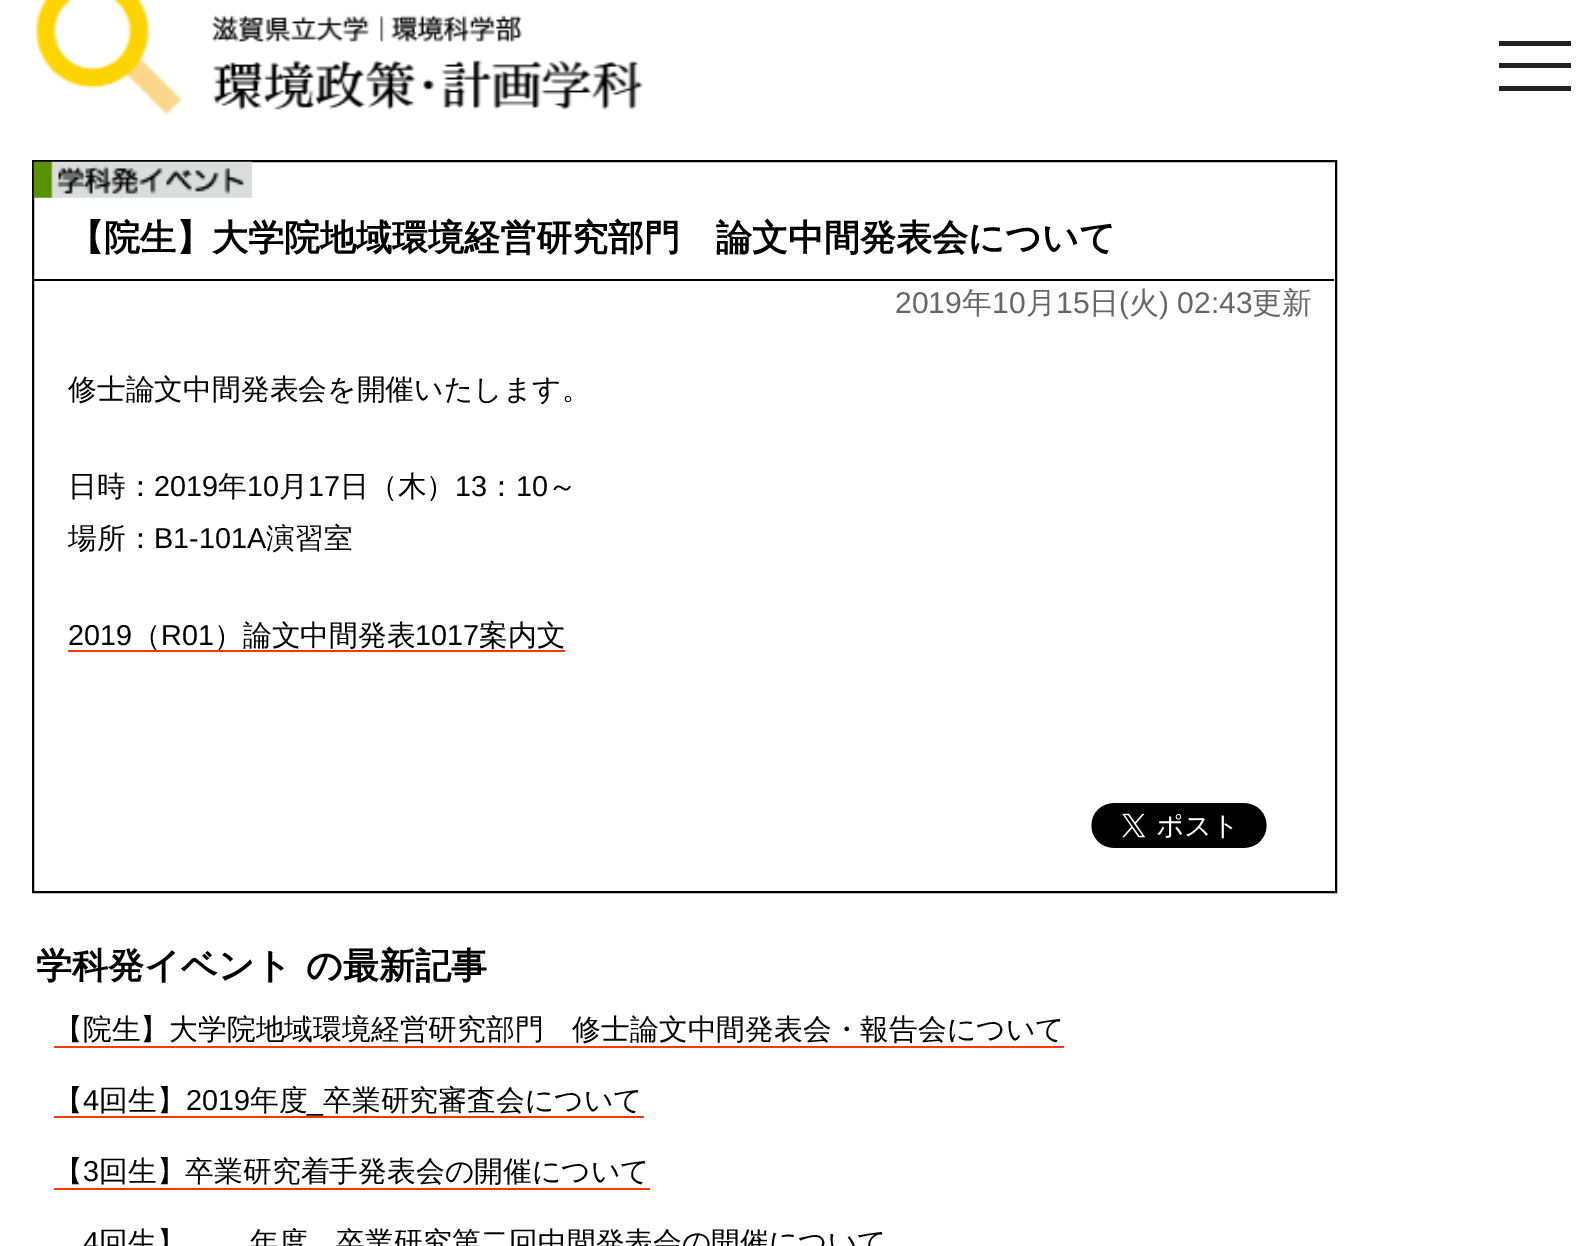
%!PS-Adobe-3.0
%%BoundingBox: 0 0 1596 1246
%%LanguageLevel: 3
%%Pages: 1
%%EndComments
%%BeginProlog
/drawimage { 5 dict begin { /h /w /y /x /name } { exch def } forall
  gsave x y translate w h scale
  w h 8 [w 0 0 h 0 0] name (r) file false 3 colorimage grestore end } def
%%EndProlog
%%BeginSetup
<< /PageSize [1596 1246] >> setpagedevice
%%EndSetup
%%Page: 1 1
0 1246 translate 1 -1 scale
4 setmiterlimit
1 setgray
0 0 1596 1246 rectfill
(images/1.raw) 35 0 148 116 drawimage
(images/2.raw) 212 15 173 28 drawimage
(images/3.raw) 391 15 131 28 drawimage
(images/4.raw) 212 60 432 50 drawimage
0.133 setgray
1499 63 72 5 rectfill
1499 41 72 5 rectfill
1499 86 72 5 rectfill
0 setgray
2 setlinewidth
33 161 1303 731 rectstroke
(images/5.raw) 33 161 219 37 drawimage
34 279 1300 2 rectfill
1 0.216 0.024 setrgbcolor
68 650 497 2 rectfill
(images/6.raw) 1091 803 176 45 drawimage
54 1046 1010 2 rectfill
54 1116 590 2 rectfill
54 1188 596 2 rectfill
/WenQuanYiZenHei-Bold [36 0 0 -36 0 0] selectfont
0 setgray
68 250 moveto (【院生】大学院地域環境経営研究部門　論文中間発表会について) show
/LiberationSans-Regular [30 0 0 -30 0 0] selectfont
0.4 setgray
895 313 moveto (2019) show
/WenQuanYiZenHei-Medium [30 0 0 -30 0 0] selectfont
962 313 moveto (年) show
/LiberationSans-Regular [30 0 0 -30 0 0] selectfont
992 313 moveto (10) show
/WenQuanYiZenHei-Medium [30 0 0 -30 0 0] selectfont
1026 313 moveto (月) show
/LiberationSans-Regular [30 0 0 -30 0 0] selectfont
1056 313 moveto (15) show
/WenQuanYiZenHei-Medium [30 0 0 -30 0 0] selectfont
1089 313 moveto (日) show
/LiberationSans-Regular [30 0 0 -30 0 0] selectfont
1119 313 moveto (\() show
/WenQuanYiZenHei-Medium [30 0 0 -30 0 0] selectfont
1129 313 moveto (火) show
/LiberationSans-Regular [30 0 0 -30 0 0] selectfont
1159 313 moveto (\) 02:43) show
/WenQuanYiZenHei-Medium [30 0 0 -30 0 0] selectfont
1252 313 moveto (更新) show
/WenQuanYiZenHei-Medium [28.8 0 0 -28.8 0 0] selectfont
0 setgray
68 399 moveto (修士論文中間発表会を開催いたします。) show
68 496 moveto (日時：) show
/LiberationSans-Regular [28.8 0 0 -28.8 0 0] selectfont
154 496 moveto (2019) show
/WenQuanYiZenHei-Medium [28.8 0 0 -28.8 0 0] selectfont
218 496 moveto (年) show
/LiberationSans-Regular [28.8 0 0 -28.8 0 0] selectfont
247 496 moveto (10) show
/WenQuanYiZenHei-Medium [28.8 0 0 -28.8 0 0] selectfont
279 496 moveto (月) show
/LiberationSans-Regular [28.8 0 0 -28.8 0 0] selectfont
308 496 moveto (17) show
/WenQuanYiZenHei-Medium [28.8 0 0 -28.8 0 0] selectfont
340 496 moveto (日（木）) show
/LiberationSans-Regular [28.8 0 0 -28.8 0 0] selectfont
455 496 moveto (13) show
/WenQuanYiZenHei-Medium [28.8 0 0 -28.8 0 0] selectfont
487 496 moveto (：) show
/LiberationSans-Regular [28.8 0 0 -28.8 0 0] selectfont
516 496 moveto (10) show
/WenQuanYiZenHei-Medium [28.8 0 0 -28.8 0 0] selectfont
548 496 moveto (～) show
68 548 moveto (場所：) show
/LiberationSans-Regular [28.8 0 0 -28.8 0 0] selectfont
154 548 moveto (B1-101A) show
/WenQuanYiZenHei-Medium [28.8 0 0 -28.8 0 0] selectfont
266 548 moveto (演習室) show
/LiberationSans-Regular [28.8 0 0 -28.8 0 0] selectfont
68 645 moveto (2019) show
/WenQuanYiZenHei-Medium [28.8 0 0 -28.8 0 0] selectfont
132 645 moveto (（) show
/LiberationSans-Regular [28.8 0 0 -28.8 0 0] selectfont
161 645 moveto (R01) show
/WenQuanYiZenHei-Medium [28.8 0 0 -28.8 0 0] selectfont
214 645 moveto (）論文中間発表) show
/LiberationSans-Regular [28.8 0 0 -28.8 0 0] selectfont
415 645 moveto (1017) show
/WenQuanYiZenHei-Medium [28.8 0 0 -28.8 0 0] selectfont
479 645 moveto (案内文) show
/WenQuanYiZenHei-Bold [36 0 0 -36 0 0] selectfont
36 978 moveto (学科発イベント) show
306 978 moveto (の最新記事) show
/WenQuanYiZenHei-Medium [28.8 0 0 -28.8 0 0] selectfont
54 1039 moveto (【院生】大学院地域環境経営研究部門　修士論文中間発表会・報告会について) show
54 1110 moveto (【) show
/LiberationSans-Regular [28.8 0 0 -28.8 0 0] selectfont
83 1110 moveto (4) show
/WenQuanYiZenHei-Medium [28.8 0 0 -28.8 0 0] selectfont
99 1110 moveto (回生】) show
/LiberationSans-Regular [28.8 0 0 -28.8 0 0] selectfont
186 1110 moveto (2019) show
/WenQuanYiZenHei-Medium [28.8 0 0 -28.8 0 0] selectfont
250 1110 moveto (年度) show
323 1110 moveto (卒業研究審査会について) show
/LiberationSans-Regular [28.8 0 0 -28.8 0 0] selectfont
307 1110 moveto (_) show
/WenQuanYiZenHei-Medium [28.8 0 0 -28.8 0 0] selectfont
54 1181 moveto (【) show
/LiberationSans-Regular [28.8 0 0 -28.8 0 0] selectfont
83 1181 moveto (3) show
/WenQuanYiZenHei-Medium [28.8 0 0 -28.8 0 0] selectfont
99 1181 moveto (回生】卒業研究着手発表会の開催について) show
/LiberationSans-Regular [28.8 0 0 -28.8 0 0] selectfont
83 1252 moveto (4) show
/WenQuanYiZenHei-Medium [28.8 0 0 -28.8 0 0] selectfont
99 1252 moveto (回生】) show
250 1252 moveto (年度　卒業研究第二回中間発表会の開催について) show
showpage
%%EOF
